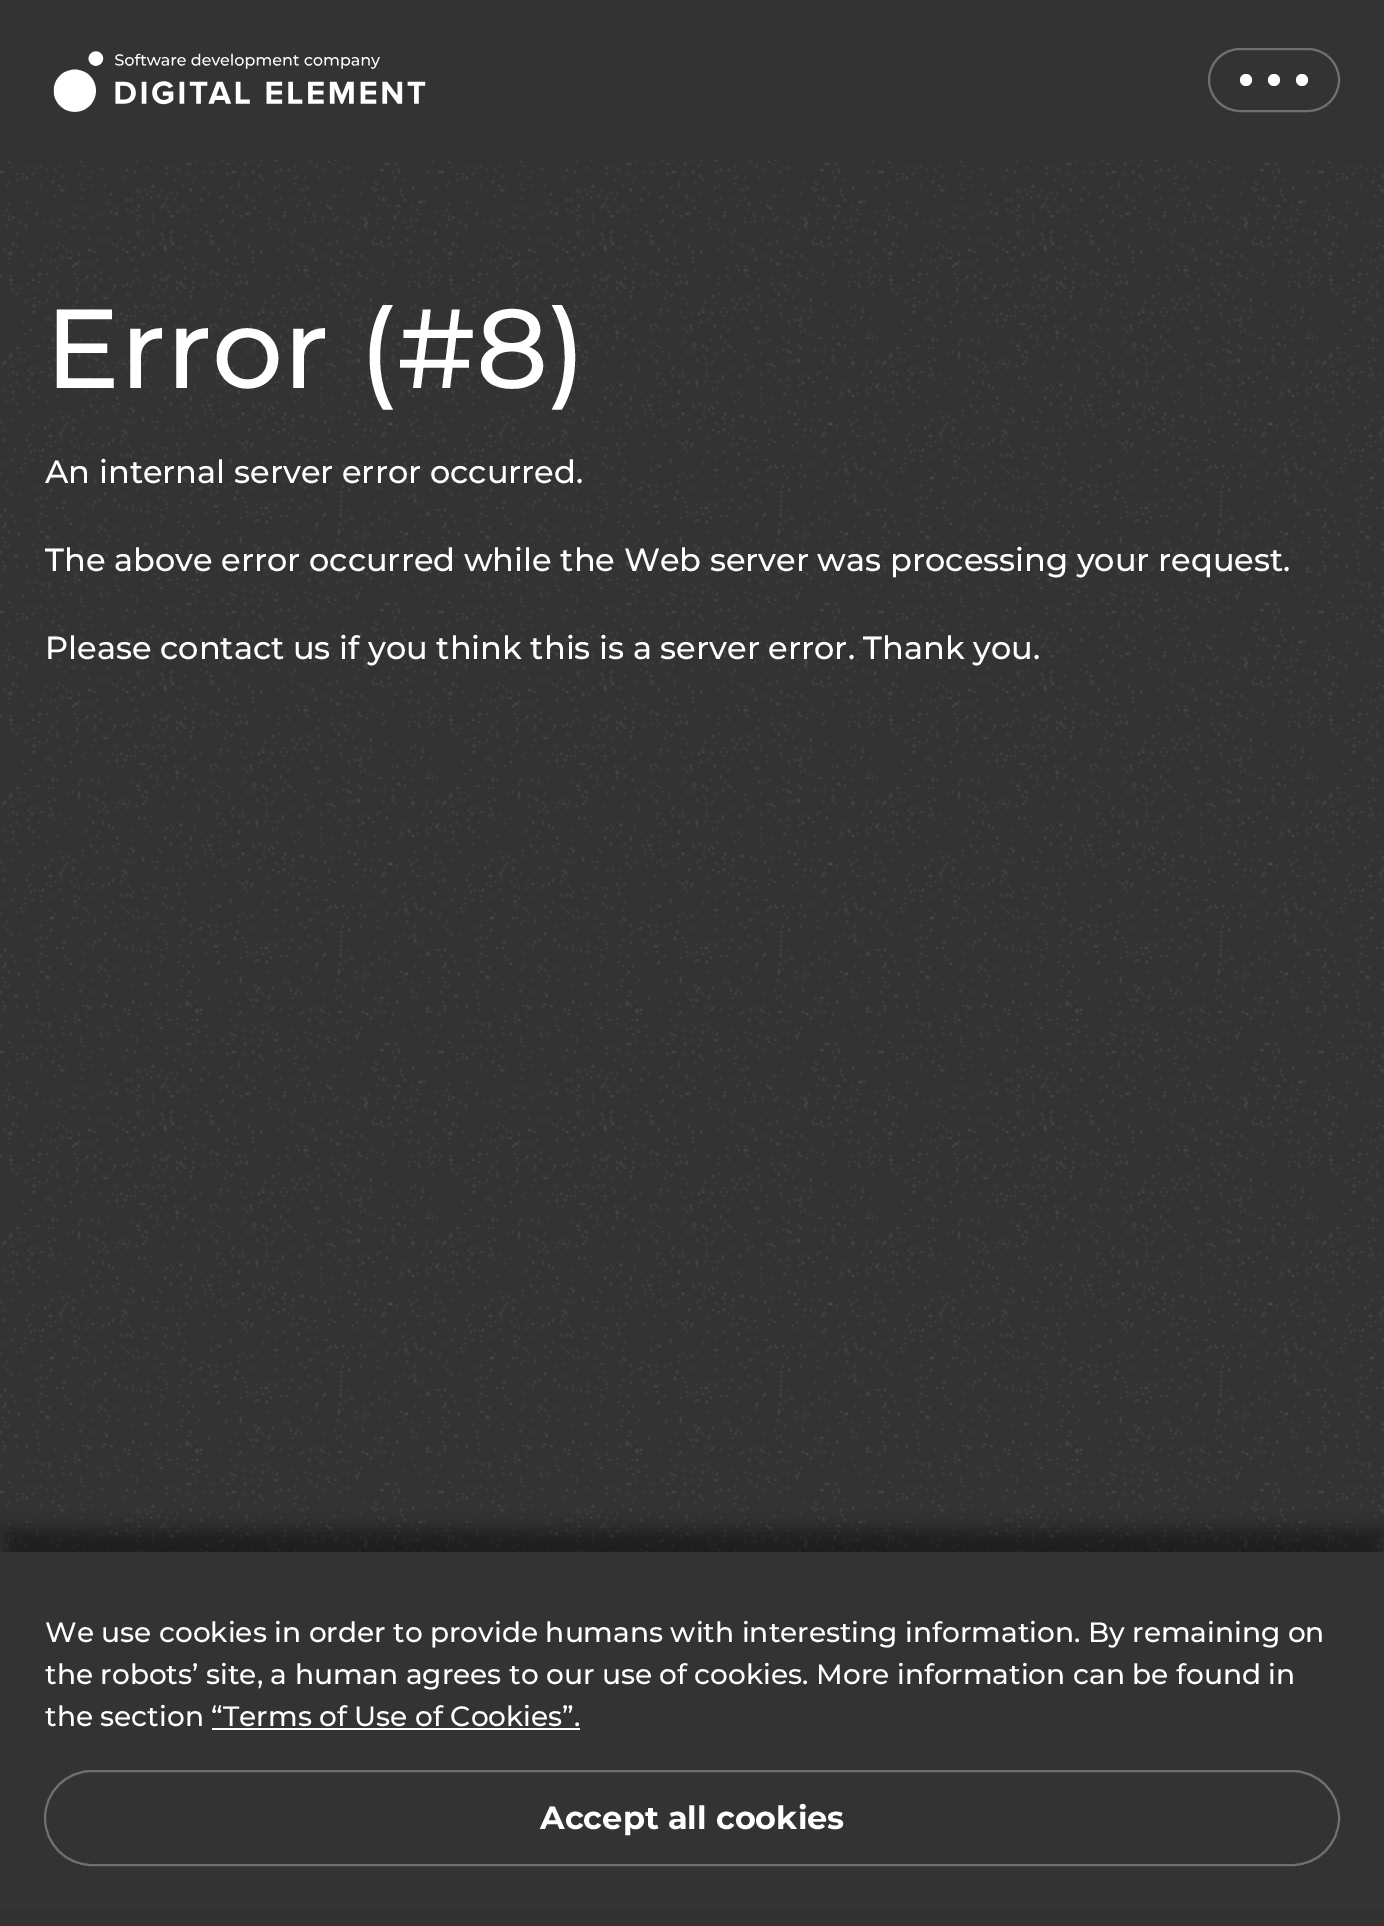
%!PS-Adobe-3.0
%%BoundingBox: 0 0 1384 1926
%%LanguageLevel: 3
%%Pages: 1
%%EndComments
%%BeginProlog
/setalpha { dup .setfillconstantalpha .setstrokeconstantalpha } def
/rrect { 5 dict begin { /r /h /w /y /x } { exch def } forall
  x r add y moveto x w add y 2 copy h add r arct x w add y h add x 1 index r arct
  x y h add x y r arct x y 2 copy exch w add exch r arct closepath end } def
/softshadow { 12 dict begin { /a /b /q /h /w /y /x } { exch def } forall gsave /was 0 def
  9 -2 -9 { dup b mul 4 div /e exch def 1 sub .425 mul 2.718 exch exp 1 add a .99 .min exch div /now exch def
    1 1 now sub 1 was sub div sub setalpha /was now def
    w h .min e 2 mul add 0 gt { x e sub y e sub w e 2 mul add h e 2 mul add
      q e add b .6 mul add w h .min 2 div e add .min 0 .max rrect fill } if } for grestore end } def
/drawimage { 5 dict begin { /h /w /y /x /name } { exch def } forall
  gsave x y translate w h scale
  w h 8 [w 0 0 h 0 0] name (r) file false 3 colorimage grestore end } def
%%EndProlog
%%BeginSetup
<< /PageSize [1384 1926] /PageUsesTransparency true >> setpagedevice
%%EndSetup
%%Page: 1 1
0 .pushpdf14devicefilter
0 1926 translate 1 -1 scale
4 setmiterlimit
0.2 setgray
0 0 1384 1926 rectfill
(images/1.raw) 0 160 1384 1392 drawimage
(images/2.raw) 53 51 373 61 drawimage
0.439 setgray
2 setlinewidth
1209 49 130 62 31 rrect stroke
1 setgray
newpath 1246 80 6 0 360 arc closepath fill
newpath 1274 80 6 0 360 arc closepath fill
newpath 1302 80 6 0 360 arc closepath fill
0 setgray
4 1530 1380 370 0 9 0.4 softshadow
0.2 setgray
0 1552 1384 358 rectfill
1 setgray
212 1728 368 2 rectfill
0.439 setgray
45 1771 1294 94 47 rrect stroke
/Montserrat-Medium [112 0 0 -112 0 0] selectfont
1 setgray
45 388 moveto (Error \(#8\)) show
/Montserrat-Medium [32 0 0 -32 0 0] selectfont
45 483 moveto (An internal server error occurred.) show
45 571 moveto (The above error occurred while the Web server was processing your request.) show
45 659 moveto (Please contact us if you think this is a server error. Thank you.) show
/Montserrat-Medium [28 0 0 -28 0 0] selectfont
45 1642 moveto (We use cookies in order to provide humans with interesting information. By remaining on) show
45 1684 moveto (the robots’ site, a human agrees to our use of cookies. More information can be found in) show
45 1726 moveto (the section “Terms of Use of Cookies”.) show
/Montserrat-Bold [32 0 0 -32 0 0] selectfont
540 1829 moveto (Accept all cookies) show
.poppdf14devicefilter showpage
%%EOF
